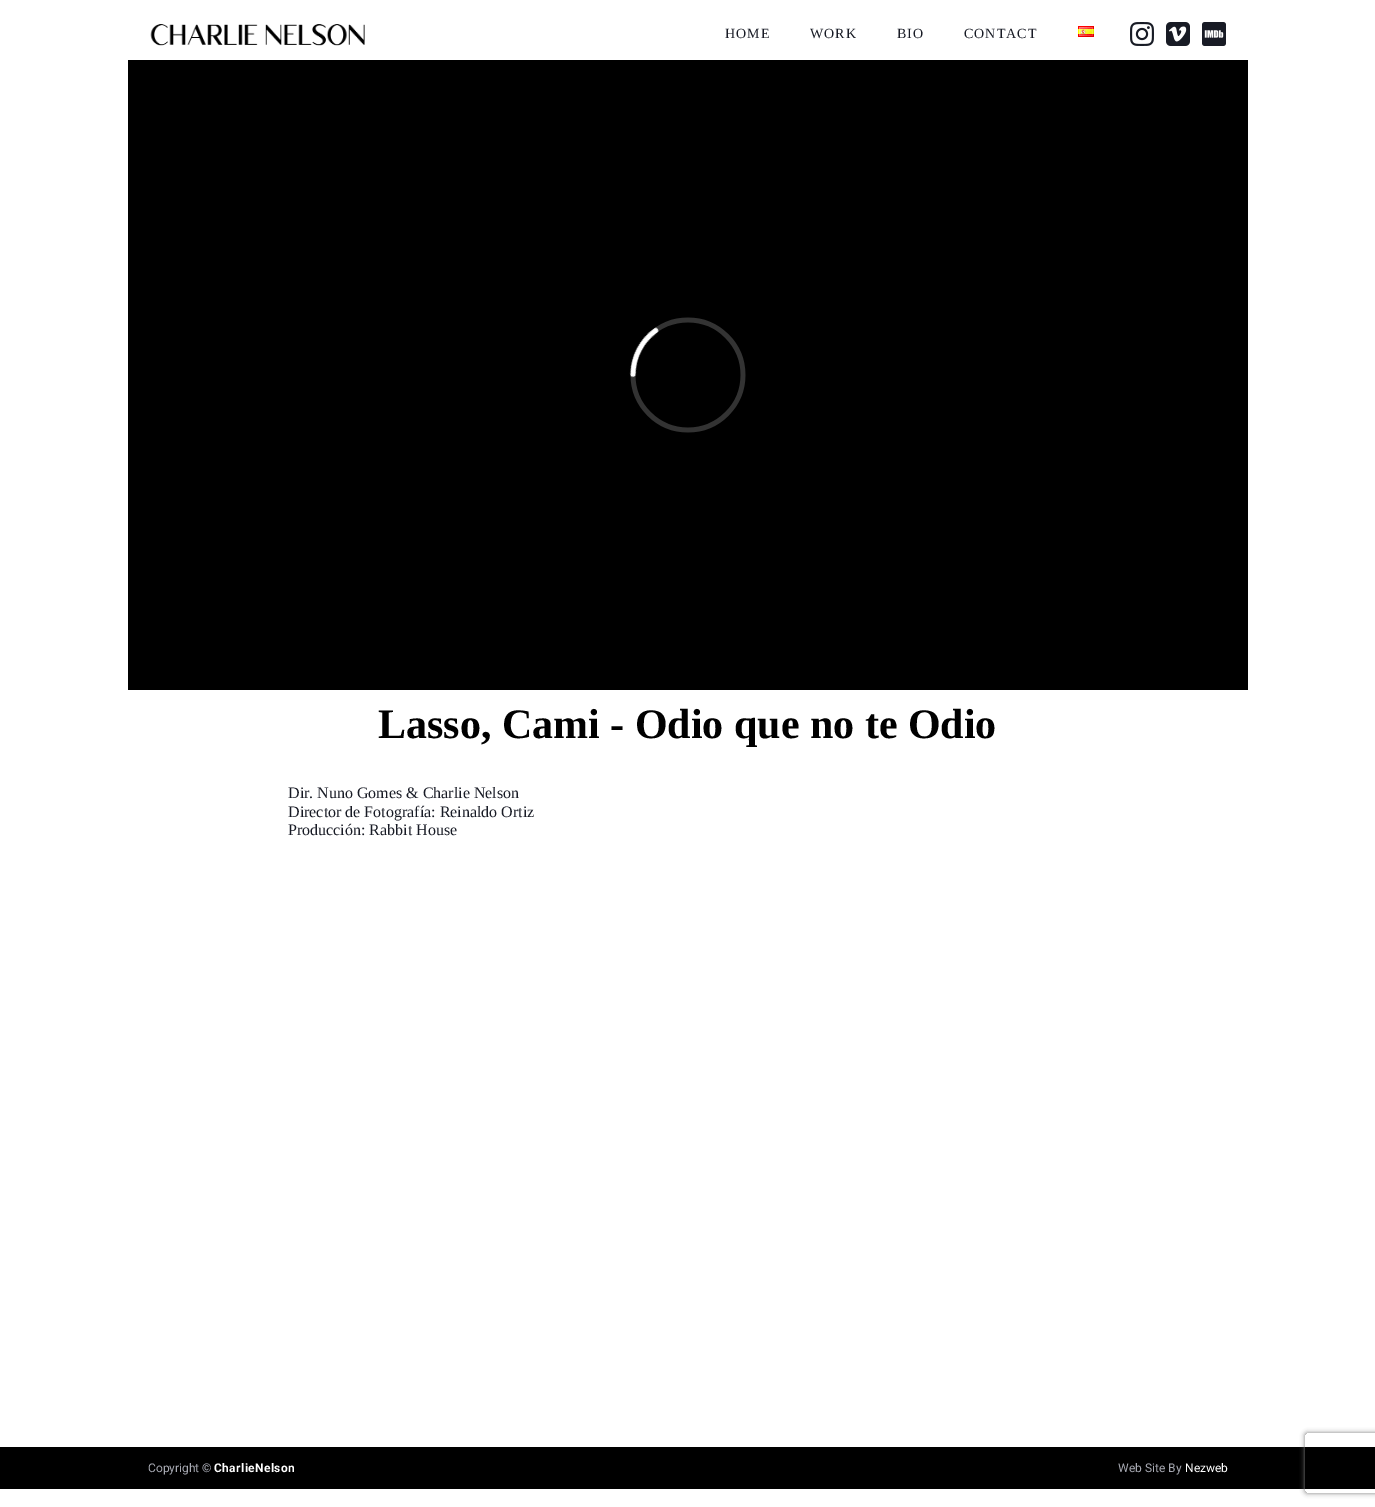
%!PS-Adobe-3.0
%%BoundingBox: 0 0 1375 1507
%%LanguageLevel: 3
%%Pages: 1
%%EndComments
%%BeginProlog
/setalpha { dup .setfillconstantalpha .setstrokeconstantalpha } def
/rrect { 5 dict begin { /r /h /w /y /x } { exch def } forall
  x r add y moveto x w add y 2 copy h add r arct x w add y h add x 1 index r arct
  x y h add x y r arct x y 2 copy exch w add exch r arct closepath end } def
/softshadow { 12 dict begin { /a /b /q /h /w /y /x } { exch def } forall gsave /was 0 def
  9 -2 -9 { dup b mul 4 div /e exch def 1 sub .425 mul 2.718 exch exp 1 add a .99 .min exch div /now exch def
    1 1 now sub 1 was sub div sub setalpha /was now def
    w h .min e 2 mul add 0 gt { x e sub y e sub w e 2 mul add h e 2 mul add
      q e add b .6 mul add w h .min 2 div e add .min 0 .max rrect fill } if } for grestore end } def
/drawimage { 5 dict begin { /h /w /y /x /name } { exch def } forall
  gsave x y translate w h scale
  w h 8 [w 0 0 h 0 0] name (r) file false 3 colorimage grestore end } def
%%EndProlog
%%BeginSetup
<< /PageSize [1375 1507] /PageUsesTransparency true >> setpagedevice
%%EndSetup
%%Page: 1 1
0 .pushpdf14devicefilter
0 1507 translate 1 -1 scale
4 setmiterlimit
1 setgray
0 0 1375 1507 rectfill
(images/1.raw) 150 24 215 22 drawimage
(images/2.raw) 1078 26 16 11 drawimage
(images/3.raw) 1130 22 24 24 drawimage
(images/4.raw) 1166 22 24 24 drawimage
(images/5.raw) 1202 22 24 24 drawimage
(images/6.raw) 128 60 1120 630 drawimage
0 setgray
0 1447 1375 42 rectfill
gsave
newpath 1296 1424 moveto 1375 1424 lineto 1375 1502 lineto 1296 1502 lineto closepath 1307 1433 moveto 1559 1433 lineto 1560 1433 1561 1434 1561 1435 curveto 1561 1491 lineto 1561 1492 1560 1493 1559 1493 curveto 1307 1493 lineto 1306 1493 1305 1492 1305 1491 curveto 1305 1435 lineto 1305 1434 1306 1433 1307 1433 curveto closepath eoclip newpath
0.502 setgray
1305 1433 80 60 2 2.5 1 softshadow
grestore
/LiberationSerif-Regular [14 0 0 -14 0 0] selectfont
0.094 0.106 0.145 setrgbcolor
725 38 moveto 1 0 (HOME) ashow
810 38 moveto 1 0 (WORK) ashow
897 38 moveto 1 0 (BIO) ashow
964 38 moveto 1 0 (CONTACT) ashow
/LiberationSerif-Bold [42 0 0 -42 0 0] selectfont
0 setgray
378 738 moveto (Lasso, Cami - Odio que no te Odio) show
/LiberationSerif-Regular [16 0 0 -16 0 0] selectfont
0.094 0.106 0.145 setrgbcolor
288 798 moveto (Dir. Nuno Gomes & Charlie Nelson) show
288 817 moveto (Director de Fotografía: Reinaldo Ortiz) show
288 835 moveto (Producción: Rabbit House) show
/Roboto-Regular [12 0 0 -12 0 0] selectfont
0.655 0.663 0.698 setrgbcolor
148 1472 moveto (Copyright ©) show
/Roboto-Bold [12 0 0 -12 0 0] selectfont
1 setgray
214 1472 moveto 0.4 0 (CharlieNelson) ashow
/Roboto-Regular [12 0 0 -12 0 0] selectfont
0.655 0.663 0.698 setrgbcolor
1118 1472 moveto (Web Site By) show
1 setgray
1185 1472 moveto (Nezweb) show
.poppdf14devicefilter showpage
%%EOF
